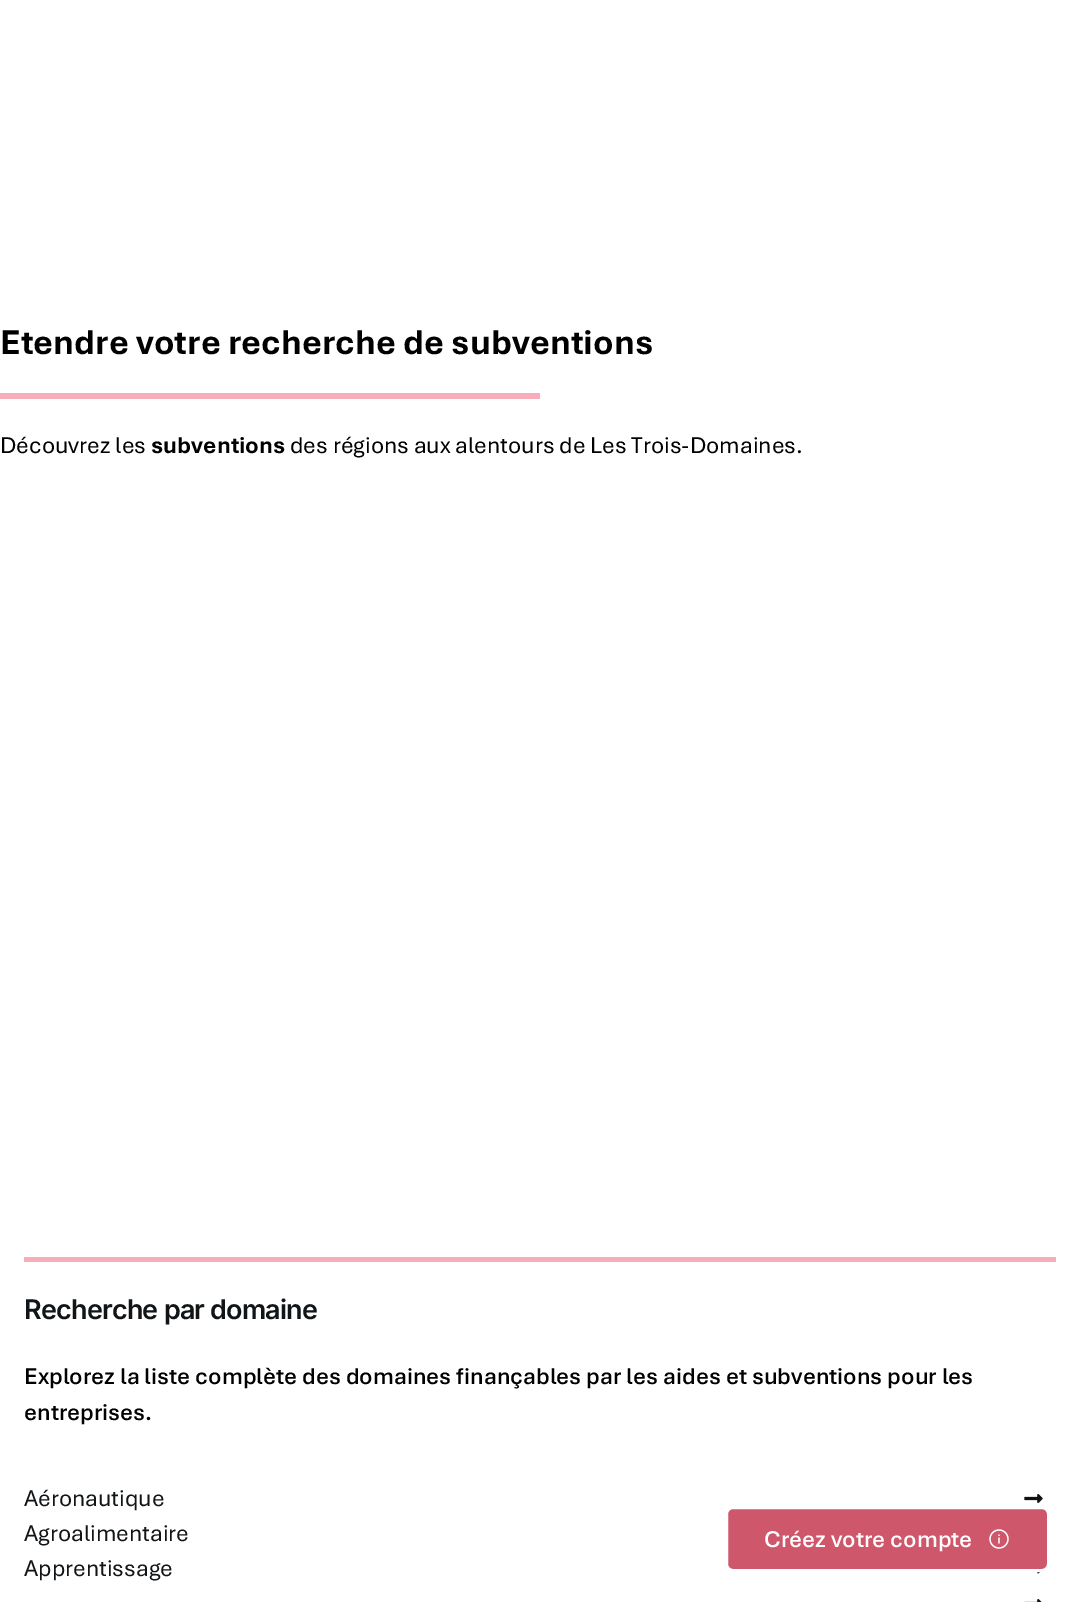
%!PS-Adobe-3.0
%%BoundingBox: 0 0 1079 1602
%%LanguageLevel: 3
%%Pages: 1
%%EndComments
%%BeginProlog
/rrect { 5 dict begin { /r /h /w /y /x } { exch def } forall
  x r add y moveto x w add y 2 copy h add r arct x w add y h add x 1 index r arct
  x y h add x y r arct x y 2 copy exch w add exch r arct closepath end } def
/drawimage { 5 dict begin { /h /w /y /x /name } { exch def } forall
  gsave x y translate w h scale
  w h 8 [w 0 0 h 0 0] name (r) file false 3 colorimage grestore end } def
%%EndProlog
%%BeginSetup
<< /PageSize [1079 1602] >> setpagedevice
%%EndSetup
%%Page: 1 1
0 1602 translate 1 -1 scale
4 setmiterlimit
1 setgray
0 0 1079 1602 rectfill
0.969 0.678 0.729 setrgbcolor
0 393 540 6 rectfill
24 1257 1032 5 rectfill
(images/1.raw) 1024 1494 19 9 drawimage
(images/2.raw) 1037 1572 3 2 drawimage
(images/3.raw) 1024 1599 18 3 drawimage
0.812 0.341 0.424 setrgbcolor
726.5 1507.5 322 63 6.5 rrect gsave fill grestore
1 setgray
3 setlinewidth
stroke
(images/4.raw) 989 1529 20 20 drawimage
/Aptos-Bold [36 0 0 -36 0 0] selectfont
0 setgray
0 354 moveto (Etendre votre recherche de subventions) show
/Aptos-Regular [24 0 0 -24 0 0] selectfont
0 453 moveto (Découvrez les) show
/Aptos-Bold [24 0 0 -24 0 0] selectfont
151 453 moveto (subventions) show
/Aptos-Regular [24 0 0 -24 0 0] selectfont
290 453 moveto (des régions aux alentours de Les Trois-Domaines.) show
/Inter-SemiBold [27 0 0 -27 0 0] selectfont
0.071 0.082 0.09 setrgbcolor
24 1319 moveto -0.8 0 (Recherche par domaine) ashow
/Aptos-SemiBold [24 0 0 -24 0 0] selectfont
0 setgray
24 1384 moveto (Explorez la liste complète des domaines finançables par les aides et subventions pour les) show
24 1420 moveto (entreprises.) show
/Aptos-Regular [24 0 0 -24 0 0] selectfont
0.071 0.082 0.09 setrgbcolor
24 1506 moveto (Aéronautique) show
24 1541 moveto (Agroalimentaire) show
24 1576 moveto (Apprentissage) show
/Aptos-SemiBold [24 0 0 -24 0 0] selectfont
1 setgray
764 1547 moveto (Créez votre compte) show
showpage
%%EOF
